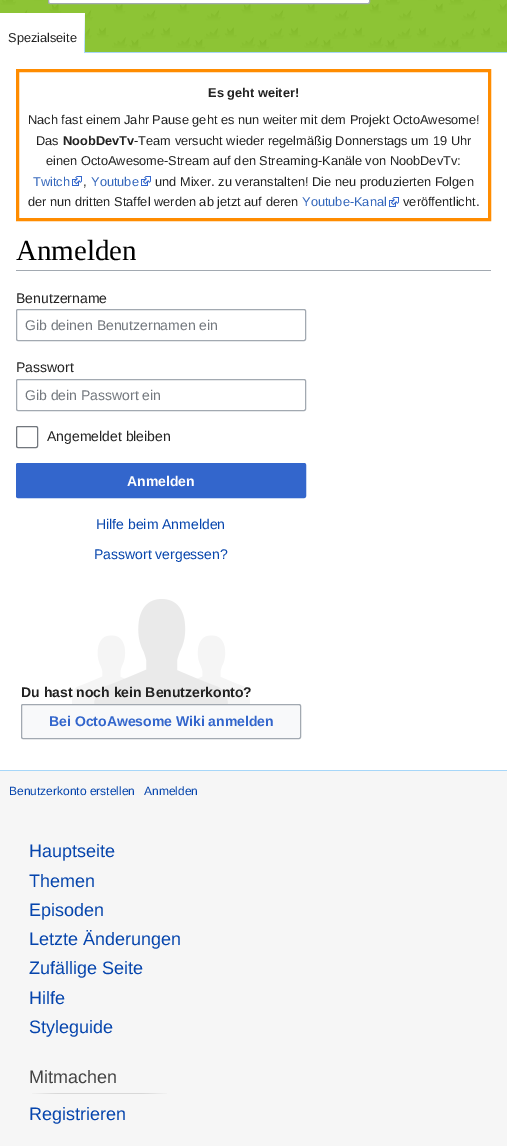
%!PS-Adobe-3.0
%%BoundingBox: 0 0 507 1146
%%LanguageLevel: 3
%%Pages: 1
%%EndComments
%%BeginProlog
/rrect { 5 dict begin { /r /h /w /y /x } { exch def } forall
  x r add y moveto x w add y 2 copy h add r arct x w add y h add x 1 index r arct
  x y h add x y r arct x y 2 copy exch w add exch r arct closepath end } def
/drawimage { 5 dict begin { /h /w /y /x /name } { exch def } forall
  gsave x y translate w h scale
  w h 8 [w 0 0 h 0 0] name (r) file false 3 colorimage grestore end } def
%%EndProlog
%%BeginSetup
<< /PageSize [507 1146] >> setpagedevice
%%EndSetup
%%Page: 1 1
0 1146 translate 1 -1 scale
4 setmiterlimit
0.965 setgray
0 0 507 1146 rectfill
(images/1.raw) 0 0 507 52 drawimage
1 setgray
48.5 -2.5 321 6 1.5 rrect gsave fill grestore
0.635 0.663 0.694 setrgbcolor
stroke
1 setgray
0 13 84 40 rectfill
(images/2.raw) 84 13 1 40 drawimage
(images/3.raw) 32 1093 135 1 drawimage
0 53 507 717 rectfill
0.655 0.843 0.976 setrgbcolor
85 52 422 1 rectfill
0 770 507 1 rectfill
1 0.549 0 setrgbcolor
3 setlinewidth
17.5 70.5 472 149 rectstroke
(images/4.raw) 72 176 10 10 drawimage
(images/4.raw) 141 176 10 10 drawimage
(images/4.raw) 389 197 10 10 drawimage
0.635 0.663 0.694 setrgbcolor
16 270 475 1 rectfill
1 setlinewidth
16.5 309.5 289 31 1.5 rrect stroke
16.5 379.5 289 31 1.5 rrect stroke
0.447 0.467 0.49 setrgbcolor
16.5 426.5 21 21 1.5 rrect stroke
0.2 0.4 0.8 setrgbcolor
16.5 463.5 289 34 1.5 rrect gsave fill grestore
stroke
(images/5.raw) 72 599 178 105 drawimage
0.973 0.976 0.98 setrgbcolor
21.5 704.5 279 34 1.5 rrect gsave fill grestore
0.635 0.663 0.694 setrgbcolor
stroke
/LiberationSans-Regular [12.8 0 0 -12.8 0 0] selectfont
0.133 setgray
8 42 moveto (Spezialseite) show
/LiberationSans-Regular [12 0 0 -12 0 0] selectfont
0.024 0.271 0.678 setrgbcolor
9 795 moveto (Benutzerkonto erstellen) show
144 795 moveto (Anmelden) show
/LiberationSans-Regular [18 0 0 -18 0 0] selectfont
29 857 moveto (Hauptseite) show
29 887 moveto (Themen) show
29 916 moveto (Episoden) show
29 945 moveto (Letzte Änderungen) show
29 974 moveto (Zufällige Seite) show
29 1004 moveto (Hilfe) show
29 1033 moveto (Styleguide) show
0.267 setgray
29 1083 moveto (Mitmachen) show
0.024 0.271 0.678 setrgbcolor
29 1120 moveto (Registrieren) show
/LiberationSans-Bold [12.8 0 0 -12.8 0 0] selectfont
0.133 setgray
208 97 moveto (Es geht weiter!) show
/LiberationSans-Regular [12.8 0 0 -12.8 0 0] selectfont
28 124 moveto (Nach fast einem Jahr Pause geht es nun weiter mit dem Projekt OctoAwesome!) show
36 145 moveto (Das) show
/LiberationSans-Bold [12.8 0 0 -12.8 0 0] selectfont
63 145 moveto (NoobDevTv) show
/LiberationSans-Regular [12.8 0 0 -12.8 0 0] selectfont
134 145 moveto (-Team versucht wieder regelmäßig Donnerstags um 19 Uhr) show
46 165 moveto (einen OctoAwesome-Stream auf den Streaming-Kanäle von NoobDevTv:) show
0.2 0.4 0.733 setrgbcolor
33 186 moveto (Twitch) show
0.133 setgray
83 186 moveto (,) show
0.2 0.4 0.733 setrgbcolor
91 186 moveto (Youtube) show
0.133 setgray
155 186 moveto (und Mixer. zu veranstalten! Die neu produzierten Folgen) show
28 206 moveto (der nun dritten Staffel werden ab jetzt auf deren) show
0.2 0.4 0.733 setrgbcolor
302 206 moveto (Youtube-Kanal) show
0.133 setgray
403 206 moveto (veröffentlicht.) show
/LiberationSerif-Regular [29 0 0 -29 0 0] selectfont
0 setgray
16 260 moveto (Anmelden) show
/LiberationSans-Regular [14 0 0 -14 0 0] selectfont
0.133 setgray
16 303 moveto (Benutzername) show
0.447 0.467 0.49 setrgbcolor
25 330 moveto (Gib deinen Benutzernamen ein) show
0.133 setgray
16 372 moveto (Passwort) show
0.447 0.467 0.49 setrgbcolor
25 400 moveto (Gib dein Passwort ein) show
0.133 setgray
47 441 moveto (Angemeldet bleiben) show
/LiberationSans-Bold [14 0 0 -14 0 0] selectfont
1 setgray
127 486 moveto (Anmelden) show
/LiberationSans-Regular [14 0 0 -14 0 0] selectfont
0.024 0.271 0.678 setrgbcolor
96 529 moveto (Hilfe beim Anmelden) show
94 559 moveto (Passwort vergessen?) show
/LiberationSans-Bold [14 0 0 -14 0 0] selectfont
0.133 setgray
21 697 moveto (Du hast noch kein Benutzerkonto?) show
0.2 0.4 0.8 setrgbcolor
49 726 moveto (Bei OctoAwesome Wiki anmelden) show
showpage
%%EOF
